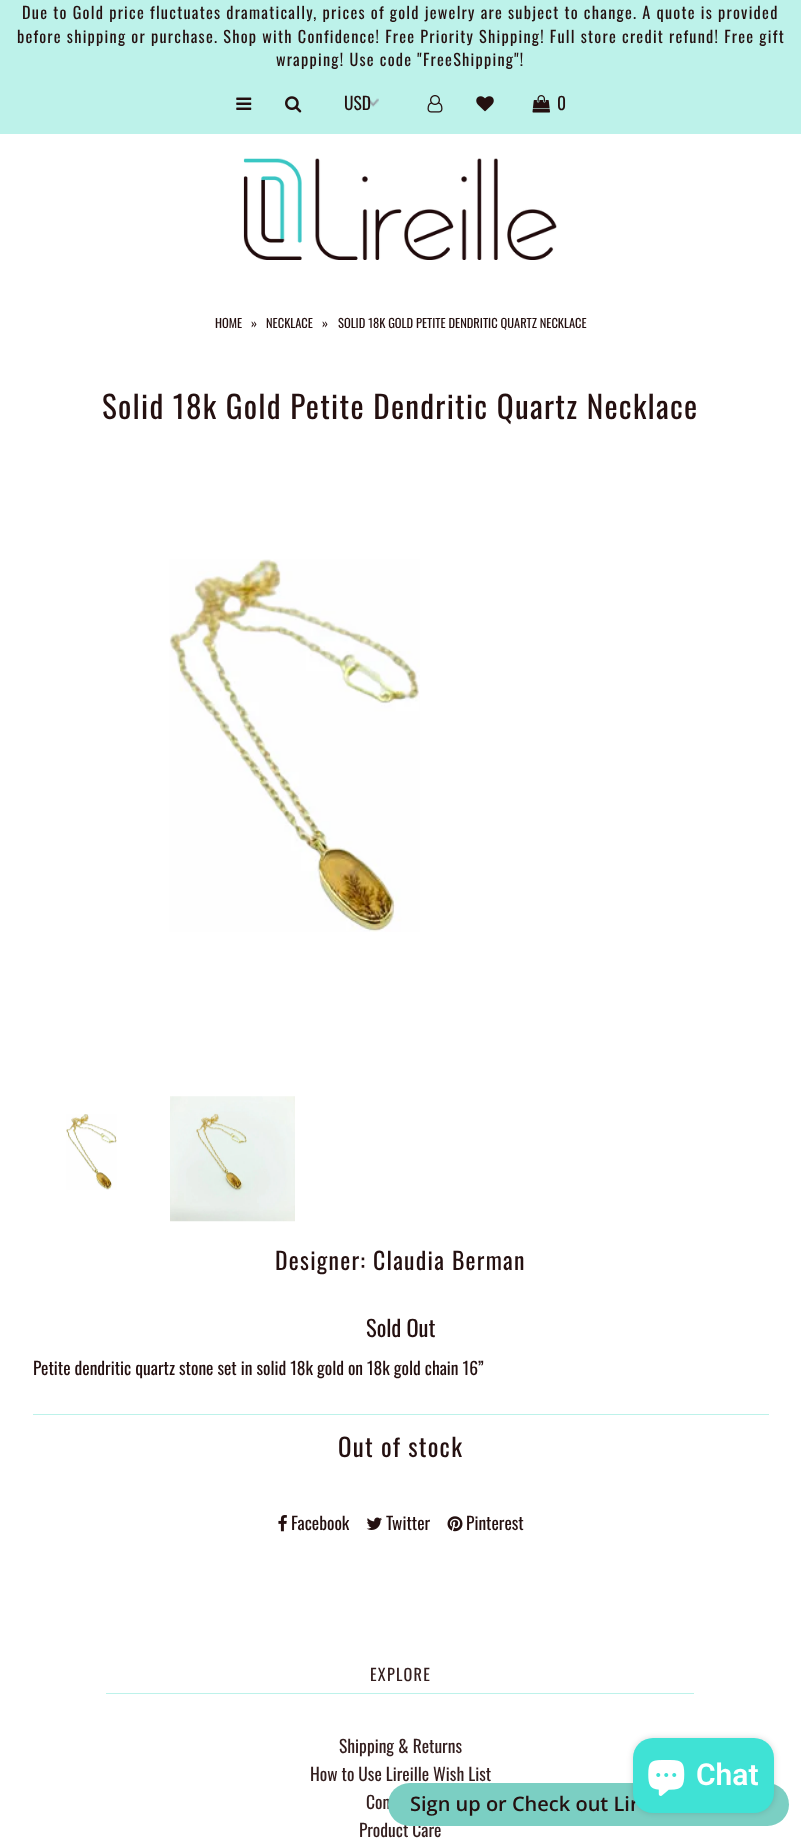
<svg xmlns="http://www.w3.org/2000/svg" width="801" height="1838">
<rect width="100%" height="100%" fill="#fff"/>
<rect width="801" height="134" fill="#bdf2ea"/>
<text x="22" y="19" style="font-family:Oswald;font-size:16.25px;letter-spacing:1.25px;fill:#241010">Due to Gold price fluctuates dramatically, prices of gold jewelry are subject to change. A quote is provided</text>
<text x="17" y="43" style="font-family:Oswald;font-size:16.25px;letter-spacing:1.25px;fill:#241010">before shipping or purchase. Shop with Confidence! Free Priority Shipping! Full store credit refund! Free gift</text>
<text x="276" y="66" style="font-family:Oswald;font-size:16.25px;letter-spacing:1.25px;fill:#241010">wrapping! Use code "FreeShipping"!</text>
<image x="236" y="97" width="16" height="13" href="media/1.png"/>
<image x="285" y="96" width="17" height="17" href="media/2.png"/>
<image x="367" y="98" width="12" height="9" href="media/3.png"/>
<text x="344" y="110" style="font-family:Oswald;font-size:17.5px;fill:#241010">USD</text>
<image x="427" y="95" width="16" height="18" href="media/4.png"/>
<image x="476" y="96" width="18" height="16" href="media/5.png"/>
<image x="532" y="95" width="18" height="18" href="media/6.png"/>
<text x="557" y="110" style="font-family:Oswald;font-size:17.5px;letter-spacing:1.25px;fill:#241010">0</text>
<image x="243" y="158" width="314" height="102" href="media/7.png"/>
<text x="215" y="328" style="font-family:Oswald;font-size:12.5px;fill:#241010">HOME</text>
<text x="251" y="328" style="font-family:Oswald;font-size:12.5px;fill:#241010">»</text>
<text x="266" y="328" style="font-family:Oswald;font-size:12.5px;fill:#241010">NECKLACE</text>
<text x="322" y="328" style="font-family:Oswald;font-size:12.5px;fill:#241010">»</text>
<text x="338" y="328" style="font-family:Oswald;font-size:12.5px;fill:#241010">SOLID 18K GOLD PETITE DENDRITIC QUARTZ NECKLACE</text>
<text x="102" y="419" style="font-family:Oswald;font-size:31.25px;letter-spacing:1.25px;fill:#241010">Solid 18k Gold Petite Dendritic Quartz Necklace</text>
<image x="169" y="559" width="251" height="373" href="media/8.png"/>
<image x="66" y="1114" width="51" height="76" href="media/9.png"/>
<image x="170" y="1096" width="125" height="126" href="media/10.png"/>
<text x="275" y="1270" style="font-family:Oswald;font-size:23.75px;letter-spacing:1.25px;fill:#241010">Designer: Claudia Berman</text>
<text x="366" y="1337" style="font-family:Oswald;font-size:22.5px;fill:#241010">Sold Out</text>
<text x="33" y="1375" style="font-family:Oswald;font-size:17.5px;fill:#241010">Petite dendritic quartz stone set in solid 18k gold on 18k gold chain 16”</text>
<rect x="33" y="1414" width="736" height="1" fill="#bdf2ea"/>
<text x="338" y="1457" style="font-family:Oswald;font-size:25px;letter-spacing:1.25px;fill:#241010">Out of stock</text>
<image x="278" y="1515" width="9" height="17" href="media/11.png"/>
<text x="291" y="1530" style="font-family:Oswald;font-size:17.5px;fill:#241010">Facebook</text>
<image x="366" y="1517" width="16" height="13" href="media/12.png"/>
<text x="386" y="1530" style="font-family:Oswald;font-size:17.5px;fill:#241010">Twitter</text>
<image x="447" y="1516" width="16" height="16" href="media/13.png"/>
<text x="466" y="1530" style="font-family:Oswald;font-size:17.5px;fill:#241010">Pinterest</text>
<rect x="106" y="1693" width="588" height="1" fill="#bdf2ea"/>
<text x="370" y="1681" style="font-family:Oswald;font-size:16.25px;letter-spacing:1.25px;fill:#331e1e">EXPLORE</text>
<text x="339" y="1753" style="font-family:Oswald;font-size:17.5px;fill:#331e1e">Shipping &amp; Returns</text>
<text x="310" y="1781" style="font-family:Oswald;font-size:17.5px;fill:#331e1e">How to Use Lireille Wish List</text>
<text x="366" y="1809" style="font-family:Oswald;font-size:17.5px;fill:#331e1e">Con</text>
<text x="359" y="1837" style="font-family:Oswald;font-size:17.5px;fill:#331e1e">Product Care</text>
<rect x="388" y="1783" width="401" height="43" rx="21.5" fill="#7bcfc3"/>
<rect x="633" y="1738" width="141" height="75" rx="20" fill="#00000026" filter="blur(3px)"/>
<text x="410" y="1811" style="font-family:Open Sans;font-size:20px;font-weight:600;fill:#241010">Sign up or Check out Lir</text>
<rect x="633" y="1738" width="141" height="75" rx="20" fill="#3fe2d5"/>
<image x="648" y="1760" width="37" height="36" href="media/14.png"/>
<text x="696" y="1785" style="font-family:Roboto;font-size:30px;font-weight:600;fill:#fff">Chat</text>
</svg>
